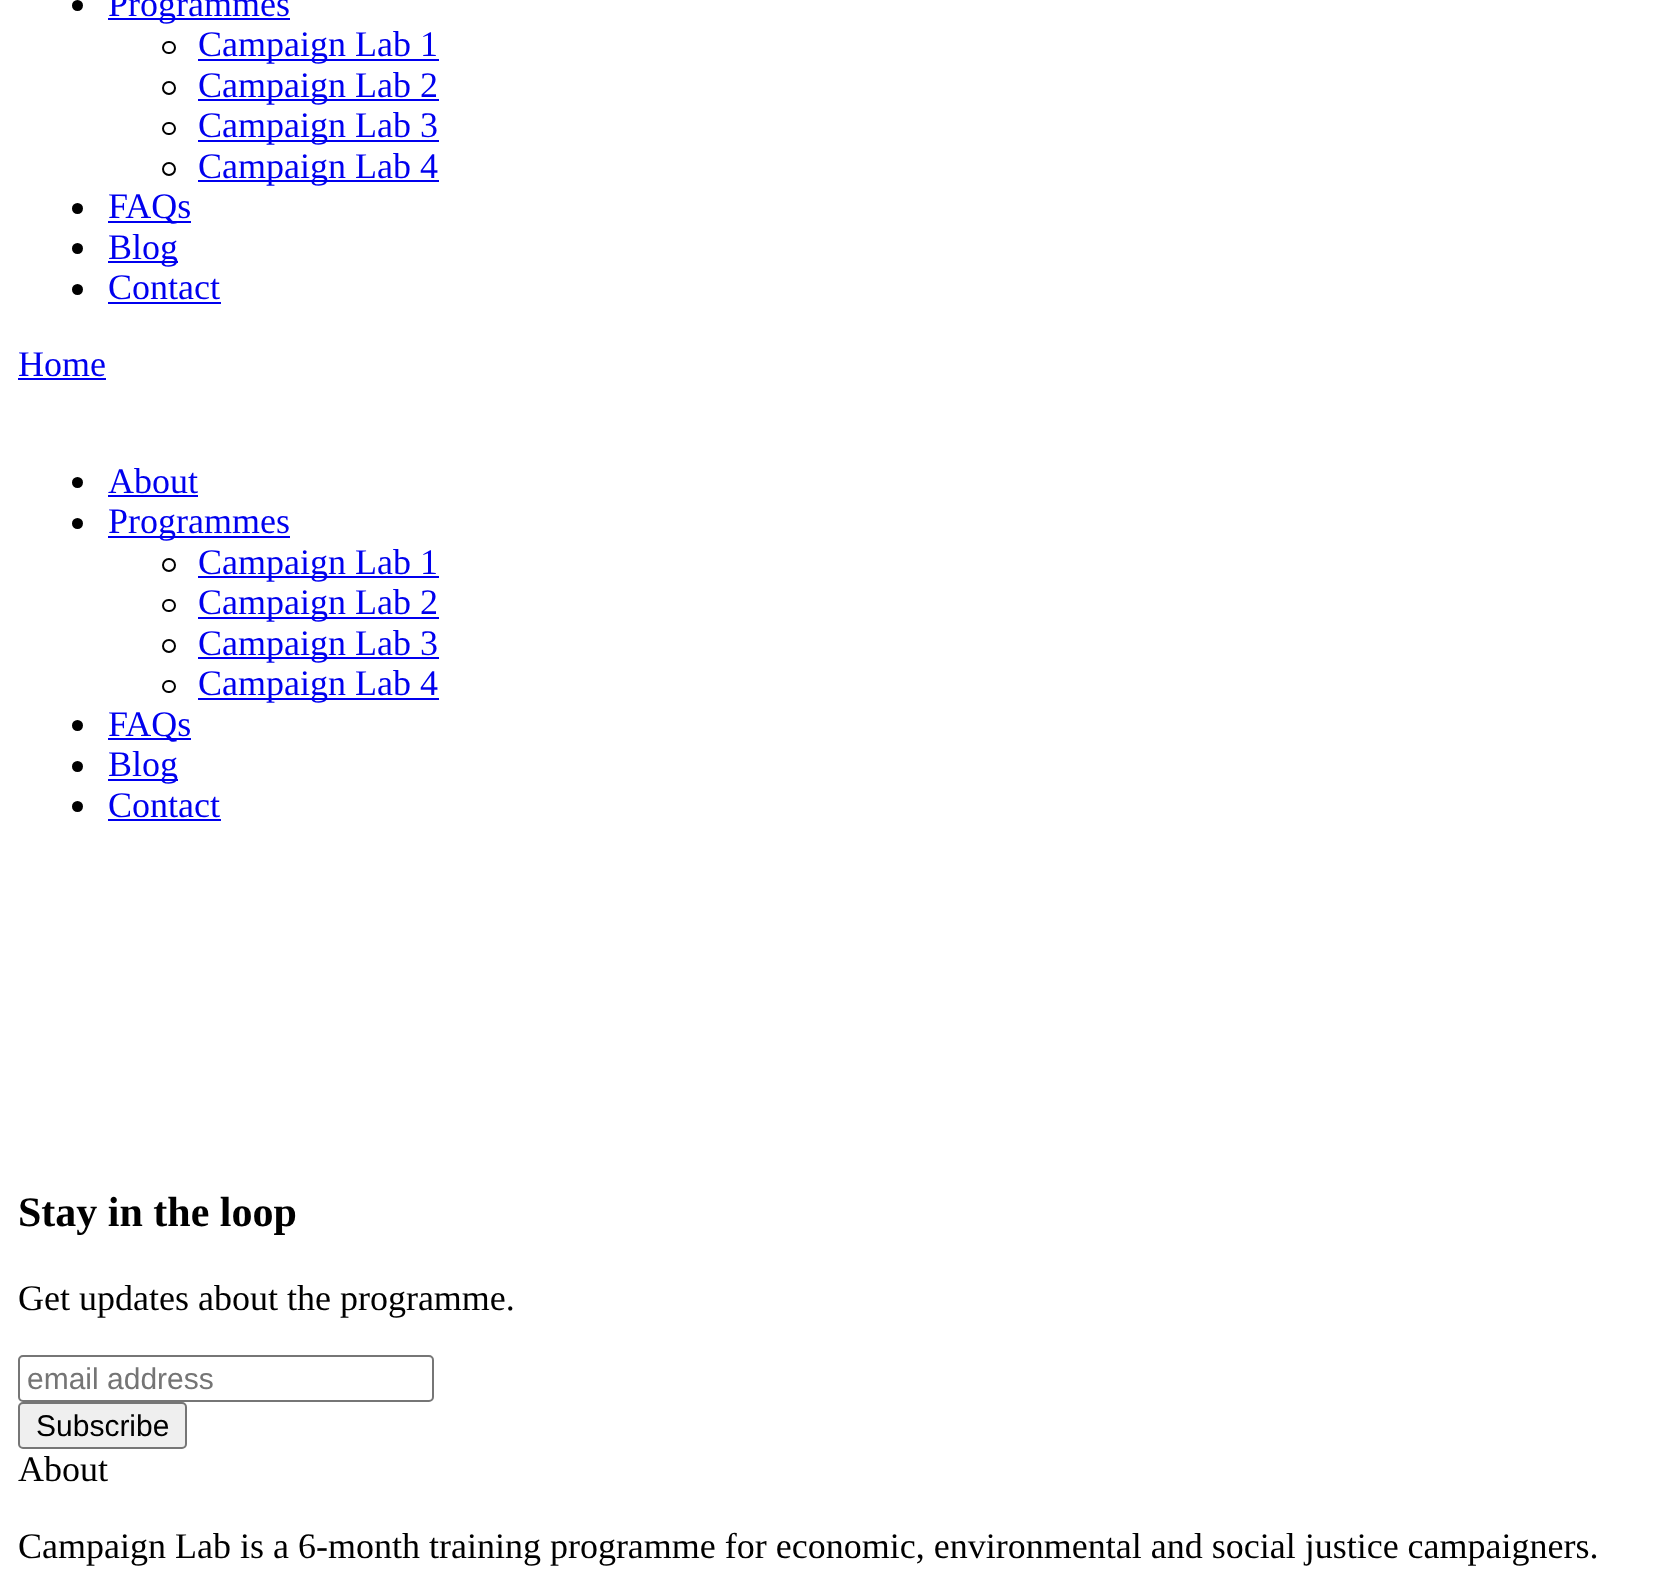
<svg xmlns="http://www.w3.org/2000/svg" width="1670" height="1573">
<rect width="100%" height="100%" fill="#fff"/>
<circle cx="77.5" cy="5.5" r="5.5" fill="#000"/>
<rect x="108" y="18" width="182" height="2" fill="#00e"/>
<text x="108" y="16" style="font-family:Liberation Serif;font-size:36px;fill:#00e">Programmes</text>
<rect x="163" y="42" width="12" height="11" rx="5.5" fill="none" stroke="#000" stroke-width="2"/>
<rect x="198" y="59" width="241" height="2" fill="#00e"/>
<text x="198" y="56" style="font-family:Liberation Serif;font-size:36px;fill:#00e">Campaign Lab 1</text>
<circle cx="169" cy="88" r="6" fill="none" stroke="#000" stroke-width="2"/>
<rect x="198" y="99" width="241" height="2" fill="#00e"/>
<text x="198" y="97" style="font-family:Liberation Serif;font-size:36px;fill:#00e">Campaign Lab 2</text>
<rect x="163" y="123" width="12" height="11" rx="5.5" fill="none" stroke="#000" stroke-width="2"/>
<rect x="198" y="140" width="241" height="2" fill="#00e"/>
<text x="198" y="137" style="font-family:Liberation Serif;font-size:36px;fill:#00e">Campaign Lab 3</text>
<circle cx="169" cy="169" r="6" fill="none" stroke="#000" stroke-width="2"/>
<rect x="198" y="180" width="241" height="2" fill="#00e"/>
<text x="198" y="178" style="font-family:Liberation Serif;font-size:36px;fill:#00e">Campaign Lab 4</text>
<circle cx="77.5" cy="208.5" r="5.5" fill="#000"/>
<rect x="108" y="221" width="83" height="2" fill="#00e"/>
<text x="108" y="218" style="font-family:Liberation Serif;font-size:36px;fill:#00e">FAQs</text>
<circle cx="77.5" cy="248.5" r="5.5" fill="#000"/>
<rect x="108" y="261" width="70" height="2" fill="#00e"/>
<text x="108" y="259" style="font-family:Liberation Serif;font-size:36px;fill:#00e">Blog</text>
<circle cx="77.5" cy="289.5" r="5.5" fill="#000"/>
<text x="108" y="299" style="font-family:Liberation Serif;font-size:36px;fill:#00e">Contact</text>
<rect x="108" y="302" width="113" height="2" fill="#00e"/>
<text x="18" y="376" style="font-family:Liberation Serif;font-size:36px;fill:#00e">Home</text>
<rect x="18" y="378" width="88" height="2" fill="#00e"/>
<circle cx="77.5" cy="482.5" r="5.5" fill="#000"/>
<text x="108" y="493" style="font-family:Liberation Serif;font-size:36px;fill:#00e">About</text>
<rect x="108" y="495" width="90" height="2" fill="#00e"/>
<circle cx="77.5" cy="523.5" r="5.5" fill="#000"/>
<rect x="108" y="536" width="182" height="2" fill="#00e"/>
<text x="108" y="533" style="font-family:Liberation Serif;font-size:36px;fill:#00e">Programmes</text>
<circle cx="169" cy="565" r="6" fill="none" stroke="#000" stroke-width="2"/>
<rect x="198" y="576" width="241" height="2" fill="#00e"/>
<text x="198" y="574" style="font-family:Liberation Serif;font-size:36px;fill:#00e">Campaign Lab 1</text>
<rect x="163" y="600" width="12" height="11" rx="5.5" fill="none" stroke="#000" stroke-width="2"/>
<rect x="198" y="617" width="241" height="2" fill="#00e"/>
<text x="198" y="614" style="font-family:Liberation Serif;font-size:36px;fill:#00e">Campaign Lab 2</text>
<circle cx="169" cy="646" r="6" fill="none" stroke="#000" stroke-width="2"/>
<rect x="198" y="657" width="241" height="2" fill="#00e"/>
<text x="198" y="655" style="font-family:Liberation Serif;font-size:36px;fill:#00e">Campaign Lab 3</text>
<rect x="163" y="681" width="12" height="11" rx="5.5" fill="none" stroke="#000" stroke-width="2"/>
<rect x="198" y="698" width="241" height="2" fill="#00e"/>
<text x="198" y="695" style="font-family:Liberation Serif;font-size:36px;fill:#00e">Campaign Lab 4</text>
<circle cx="77.5" cy="725.5" r="5.5" fill="#000"/>
<rect x="108" y="738" width="83" height="2" fill="#00e"/>
<text x="108" y="736" style="font-family:Liberation Serif;font-size:36px;fill:#00e">FAQs</text>
<circle cx="77.5" cy="766.5" r="5.5" fill="#000"/>
<rect x="108" y="779" width="70" height="2" fill="#00e"/>
<text x="108" y="776" style="font-family:Liberation Serif;font-size:36px;fill:#00e">Blog</text>
<circle cx="77.5" cy="806.5" r="5.5" fill="#000"/>
<text x="108" y="817" style="font-family:Liberation Serif;font-size:36px;fill:#00e">Contact</text>
<rect x="108" y="819" width="113" height="2" fill="#00e"/>
<text x="18" y="1226" style="font-family:Liberation Serif;font-size:42px;font-weight:bold;fill:#000">Stay in the loop</text>
<text x="18" y="1310" style="font-family:Liberation Serif;font-size:36px;fill:#000">Get updates about the programme.</text>
<rect x="19" y="1356" width="414" height="45" rx="4" fill="none" stroke="#767676" stroke-width="2"/>
<text x="27" y="1389" style="font-family:Liberation Sans;font-size:30px;fill:#757575">email address</text>
<rect x="19" y="1403" width="167" height="45" rx="4" fill="#efefef" stroke="#767676" stroke-width="2"/>
<text x="36" y="1436" style="font-family:Liberation Sans;font-size:30px;fill:#000">Subscribe</text>
<text x="18" y="1481" style="font-family:Liberation Serif;font-size:36px;fill:#000">About</text>
<text x="18" y="1558" style="font-family:Liberation Serif;font-size:36px;fill:#000">Campaign Lab is a 6-month training programme for economic, environmental and social justice campaigners.</text>
</svg>
